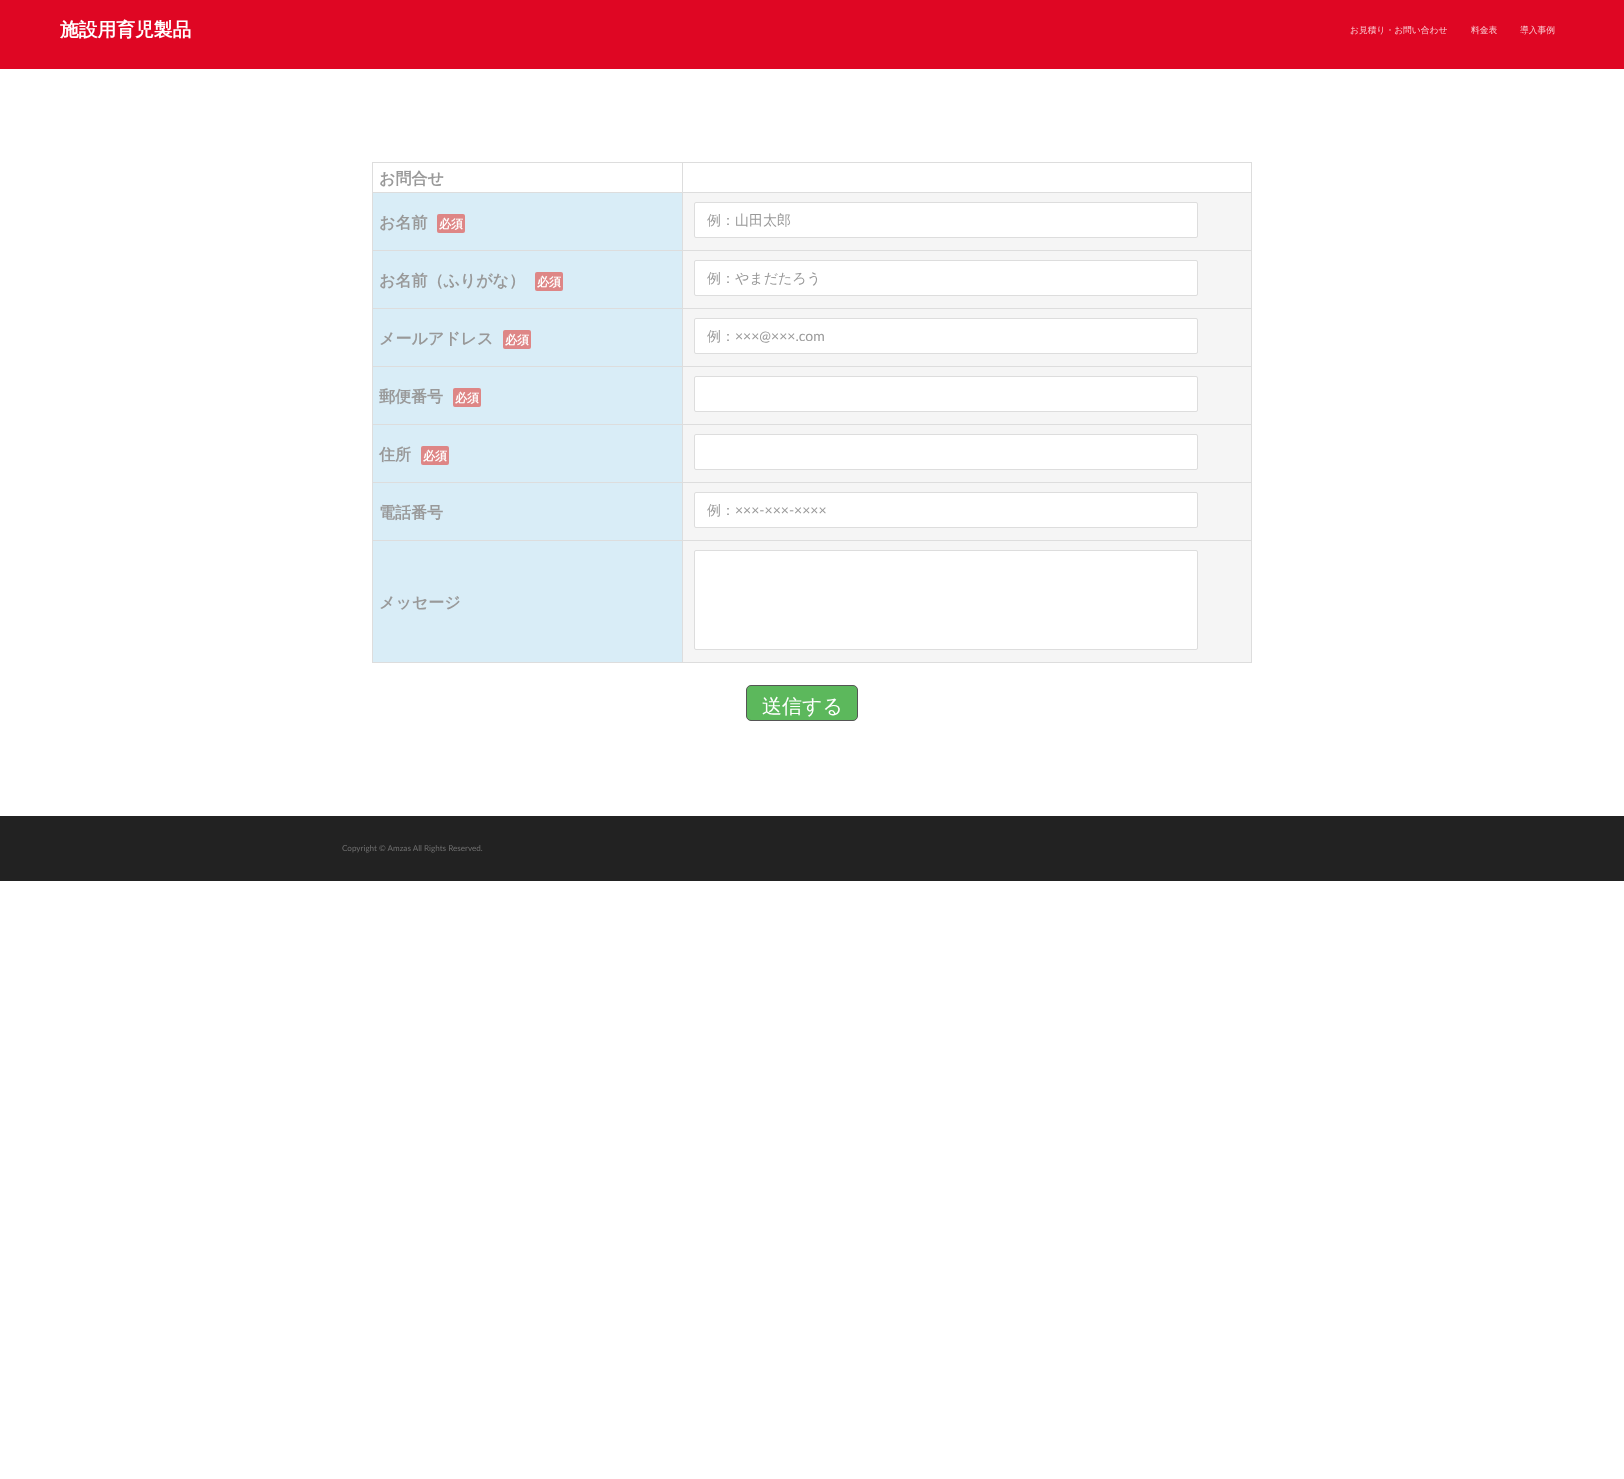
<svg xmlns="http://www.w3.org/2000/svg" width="1624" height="1479">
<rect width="100%" height="100%" fill="#fff"/>
<rect width="1624" height="69" fill="#df0623"/>
<text x="60" y="36" style="font-family:WenQuanYi Zen Hei;font-size:18.75px;font-weight:bold;fill:#fff">施設用育児製品</text>
<text x="1350" y="33" style="font-family:WenQuanYi Zen Hei;font-size:8.75px;font-weight:500;fill:#f9cdd3">お見積り・お問い合わせ</text>
<text x="1471" y="33" style="font-family:WenQuanYi Zen Hei;font-size:8.75px;font-weight:500;fill:#f9cdd3">料金表</text>
<text x="1520" y="33" style="font-family:WenQuanYi Zen Hei;font-size:8.75px;font-weight:500;fill:#f9cdd3">導入事例</text>
<rect x="372" y="162" width="880" height="1" fill="#ddd"/>
<rect x="1251" y="162" width="1" height="501" fill="#ddd"/>
<rect x="372" y="662" width="880" height="1" fill="#ddd"/>
<rect x="372" y="162" width="1" height="501" fill="#ddd"/>
<rect x="682" y="192" width="569" height="1" fill="#ddd"/>
<rect x="682" y="250" width="569" height="1" fill="#ddd"/>
<rect x="682" y="308" width="569" height="1" fill="#ddd"/>
<rect x="682" y="366" width="569" height="1" fill="#ddd"/>
<rect x="682" y="424" width="569" height="1" fill="#ddd"/>
<rect x="682" y="482" width="569" height="1" fill="#ddd"/>
<rect x="682" y="540" width="569" height="1" fill="#ddd"/>
<rect x="682" y="540" width="1" height="122" fill="#ddd"/>
<rect x="373" y="540" width="310" height="1" fill="#ddd"/>
<rect x="682" y="482" width="1" height="59" fill="#ddd"/>
<rect x="373" y="482" width="310" height="1" fill="#ddd"/>
<rect x="682" y="424" width="1" height="59" fill="#ddd"/>
<rect x="373" y="424" width="310" height="1" fill="#ddd"/>
<rect x="682" y="366" width="1" height="59" fill="#ddd"/>
<rect x="373" y="366" width="310" height="1" fill="#ddd"/>
<rect x="682" y="308" width="1" height="59" fill="#ddd"/>
<rect x="373" y="308" width="310" height="1" fill="#ddd"/>
<rect x="682" y="250" width="1" height="59" fill="#ddd"/>
<rect x="373" y="250" width="310" height="1" fill="#ddd"/>
<rect x="682" y="192" width="1" height="59" fill="#ddd"/>
<rect x="373" y="192" width="310" height="1" fill="#ddd"/>
<rect x="682" y="163" width="1" height="30" fill="#ddd"/>
<text x="379" y="184" style="font-family:WenQuanYi Zen Hei;font-size:16px;font-weight:bold;fill:#999">お問合せ</text>
<rect x="373" y="193" width="309" height="57" fill="#d9edf7"/>
<text x="379" y="228" style="font-family:WenQuanYi Zen Hei;font-size:16px;font-weight:bold;fill:#999">お名前</text>
<rect x="437" y="214" width="28" height="19" rx="2" fill="#de8686"/>
<text x="439" y="228" style="font-family:WenQuanYi Zen Hei;font-size:12px;font-weight:bold;fill:#fff">必須</text>
<rect x="683" y="193" width="568" height="57" fill="#f5f5f5"/>
<rect x="694.5" y="202.5" width="503" height="35" rx="1.5" fill="#fff" stroke="#ddd"/>
<text x="707" y="225" style="font-family:WenQuanYi Zen Hei;font-size:14px;font-weight:500;fill:#999">例：山田太郎</text>
<rect x="373" y="251" width="309" height="57" fill="#d9edf7"/>
<text x="379" y="286" style="font-family:WenQuanYi Zen Hei;font-size:16px;font-weight:bold;fill:#999">お名前（ふりがな）</text>
<rect x="535" y="272" width="28" height="19" rx="2" fill="#de8686"/>
<text x="537" y="286" style="font-family:WenQuanYi Zen Hei;font-size:12px;font-weight:bold;fill:#fff">必須</text>
<rect x="683" y="251" width="568" height="57" fill="#f5f5f5"/>
<rect x="694.5" y="260.5" width="503" height="35" rx="1.5" fill="#fff" stroke="#ddd"/>
<text x="707" y="283" style="font-family:WenQuanYi Zen Hei;font-size:14px;font-weight:500;fill:#999">例：やまだたろう</text>
<rect x="373" y="309" width="309" height="57" fill="#d9edf7"/>
<text x="379" y="344" style="font-family:WenQuanYi Zen Hei;font-size:16px;font-weight:bold;fill:#999">メールアドレス</text>
<rect x="503" y="330" width="28" height="19" rx="2" fill="#de8686"/>
<text x="505" y="344" style="font-family:WenQuanYi Zen Hei;font-size:12px;font-weight:bold;fill:#fff">必須</text>
<rect x="683" y="309" width="568" height="57" fill="#f5f5f5"/>
<rect x="694.5" y="318.5" width="503" height="35" rx="1.5" fill="#fff" stroke="#ddd"/>
<text x="707" y="341" style="font-family:WenQuanYi Zen Hei;font-size:14px;font-weight:500;fill:#999">例：</text>
<text x="735" y="341" style="font-family:Lato;font-size:14px;fill:#999">×××@×××.com</text>
<rect x="373" y="367" width="309" height="57" fill="#d9edf7"/>
<text x="379" y="402" style="font-family:WenQuanYi Zen Hei;font-size:16px;font-weight:bold;fill:#999">郵便番号</text>
<rect x="453" y="388" width="28" height="19" rx="2" fill="#de8686"/>
<text x="455" y="402" style="font-family:WenQuanYi Zen Hei;font-size:12px;font-weight:bold;fill:#fff">必須</text>
<rect x="683" y="367" width="568" height="57" fill="#f5f5f5"/>
<rect x="694.5" y="376.5" width="503" height="35" rx="1.5" fill="#fff" stroke="#ddd"/>
<rect x="373" y="425" width="309" height="57" fill="#d9edf7"/>
<text x="379" y="460" style="font-family:WenQuanYi Zen Hei;font-size:16px;font-weight:bold;fill:#999">住所</text>
<rect x="421" y="446" width="28" height="19" rx="2" fill="#de8686"/>
<text x="423" y="460" style="font-family:WenQuanYi Zen Hei;font-size:12px;font-weight:bold;fill:#fff">必須</text>
<rect x="683" y="425" width="568" height="57" fill="#f5f5f5"/>
<rect x="694.5" y="434.5" width="503" height="35" rx="1.5" fill="#fff" stroke="#ddd"/>
<rect x="373" y="483" width="309" height="57" fill="#d9edf7"/>
<text x="379" y="518" style="font-family:WenQuanYi Zen Hei;font-size:16px;font-weight:bold;fill:#999">電話番号</text>
<rect x="683" y="483" width="568" height="57" fill="#f5f5f5"/>
<rect x="694.5" y="492.5" width="503" height="35" rx="1.5" fill="#fff" stroke="#ddd"/>
<text x="707" y="515" style="font-family:WenQuanYi Zen Hei;font-size:14px;font-weight:500;fill:#999">例：</text>
<text x="735" y="515" style="font-family:Lato;font-size:14px;fill:#999">×××-×××-××××</text>
<rect x="373" y="541" width="309" height="121" fill="#d9edf7"/>
<text x="379" y="608" style="font-family:WenQuanYi Zen Hei;font-size:16px;font-weight:bold;fill:#999">メッセージ</text>
<rect x="683" y="541" width="568" height="121" fill="#f5f5f5"/>
<rect x="694.5" y="550.5" width="503" height="99" rx="1.5" fill="#fff" stroke="#ddd"/>
<rect x="746.5" y="685.5" width="111" height="35" rx="4.5" fill="#5cb85c" stroke="#555"/>
<text x="762" y="713" style="font-family:WenQuanYi Zen Hei;font-size:20px;font-weight:500;fill:#fff">送信する</text>
<rect y="816" width="1624" height="65" fill="#222"/>
<text x="342" y="851" style="font-family:Lato;font-size:8.1px;fill:#6f6f6f">Copyright © Amzas All Rights Reserved.</text>
</svg>
